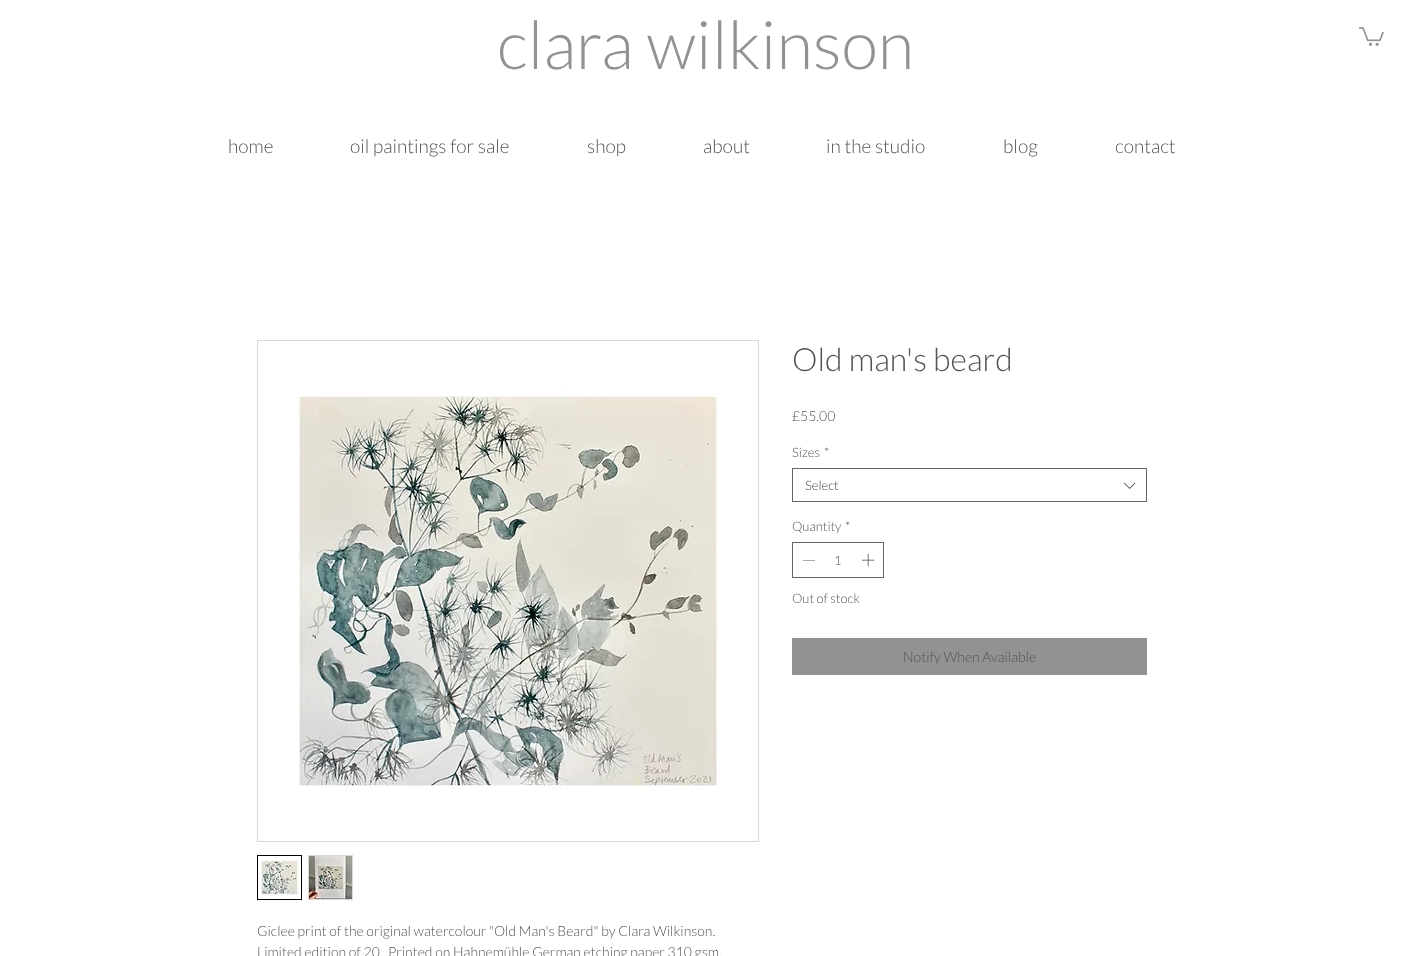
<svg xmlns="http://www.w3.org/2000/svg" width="1404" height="956">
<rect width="100%" height="100%" fill="#fff"/>
<text x="497" y="69" style="font-family:Lato;font-size:67px;font-weight:300;fill:#929292">clara wilkinson</text>
<image x="1359" y="27" width="25" height="19" href="media/1.png"/>
<text x="228" y="153" style="font-family:Lato;font-size:19px;font-weight:300;fill:#545454">home</text>
<text x="350" y="153" style="font-family:Lato;font-size:19px;font-weight:300;fill:#545454">oil paintings for sale</text>
<text x="587" y="153" style="font-family:Lato;font-size:19px;font-weight:300;fill:#545454">shop</text>
<text x="703" y="153" style="font-family:Lato;font-size:19px;font-weight:300;fill:#545454">about</text>
<text x="826" y="153" style="font-family:Lato;font-size:19px;font-weight:300;fill:#545454">in the studio</text>
<text x="1003" y="153" style="font-family:Lato;font-size:19px;font-weight:300;fill:#545454">blog</text>
<text x="1115" y="153" style="font-family:Lato;font-size:19px;font-weight:300;fill:#545454">contact</text>
<text x="792" y="371" style="font-family:Lato;font-size:32px;font-weight:300;fill:#545454">Old man's beard</text>
<text x="792" y="421" style="font-family:Lato;font-size:14px;font-weight:300;fill:#545454">£55.00</text>
<text x="792" y="457" style="font-family:Lato;font-size:13px;font-weight:300;fill:#545454">Sizes</text>
<text x="824" y="457" style="font-family:Lato;font-size:13px;font-weight:300;fill:#545454">*</text>
<rect x="792.5" y="468.5" width="354" height="33" fill="none" stroke="#666"/>
<text x="805" y="490" style="font-family:Lato;font-size:13px;font-weight:300;fill:#444">Select</text>
<image x="1124" y="482" width="12" height="7" href="media/2.png"/>
<text x="792" y="531" style="font-family:Lato;font-size:13px;font-weight:300;fill:#545454">Quantity</text>
<text x="845" y="531" style="font-family:Lato;font-size:13px;font-weight:300;fill:#545454">*</text>
<rect x="792.5" y="542.5" width="91" height="35" fill="none" stroke="#666"/>
<path d="M815 560v.5h-12v-.5z" fill="#545454" fill-rule="evenodd"/>
<text x="834" y="565" style="font-family:Lato;font-size:13px;font-weight:300;fill:#545454">1</text>
<image x="862" y="554" width="13" height="13" href="media/3.png"/>
<text x="792" y="603" style="font-family:Lato;font-size:13px;font-weight:300;fill:#545454">Out of stock</text>
<rect x="792" y="638" width="355" height="37" fill="#929292"/>
<text x="903" y="662" style="font-family:Lato;font-size:14px;font-weight:300;fill:#545454">Notify When Available</text>
<rect x="257.5" y="340.5" width="501" height="501" fill="none" stroke="#d9d9d9"/>
<image x="298" y="393" width="420" height="396" href="media/4.png"/>
<rect x="257.5" y="855.5" width="44" height="44" fill="none" stroke="#000"/>
<image x="258" y="856" width="43" height="43" href="media/5.png"/>
<rect x="308" y="855" width="45" height="45" fill="#d9d9d9"/>
<image x="309" y="856" width="43" height="43" href="media/6.png"/>
<text x="257" y="936" style="font-family:Lato;font-size:14px;font-weight:300;fill:#545454">Giclee print of the original watercolour "Old Man's Beard" by Clara Wilkinson.</text>
<text x="257" y="957" style="font-family:Lato;font-size:14px;font-weight:300;fill:#545454" xml:space="preserve">Limited edition of 20.  Printed on Hahnemühle German etching paper 310 gsm.</text>
</svg>
